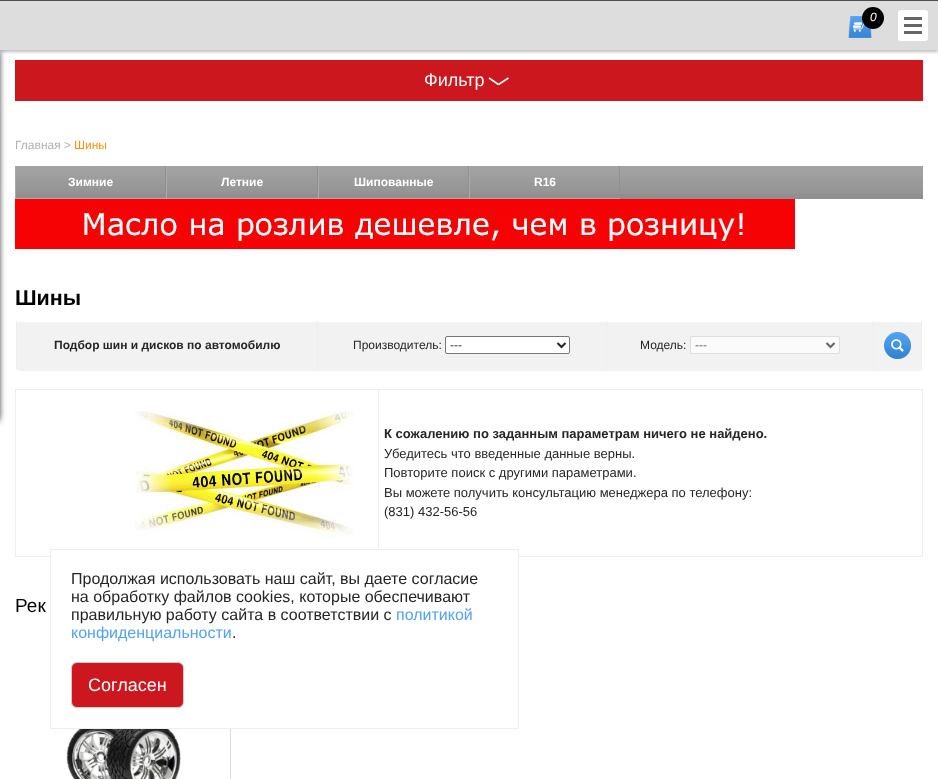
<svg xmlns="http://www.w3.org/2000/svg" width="938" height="779">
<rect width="100%" height="100%" fill="#fff"/>
<rect y="2" width="938" height="50" fill="#00000040" filter="blur(1.5px)"/>
<rect x="-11" y="51" width="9" height="369" fill="#000000b3" filter="blur(3.5px)"/>
<rect x="-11" y="51" width="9" height="369" fill="#000000b3" filter="blur(3.5px)"/>
<rect y="1" width="938" height="49" fill="#ddd"/>
<rect width="938" height="1" fill="#4d4d4d"/>
<rect x="898" y="10" width="30" height="31" rx="3" fill="#fff"/>
<rect x="904" y="17" width="18" height="3" fill="#666"/>
<rect x="904" y="24" width="18" height="3" fill="#666"/>
<rect x="904" y="31" width="18" height="3" fill="#666"/>
<image x="848" y="11" width="24" height="27" href="media/1.png"/>
<circle cx="873" cy="18" r="11" fill="#000"/>
<text x="870" y="21" style="font-family:Liberation Sans;font-size:12px;font-style:italic;fill:#fff">0</text>
<rect x="15" y="60" width="908" height="41" fill="#cd171e"/>
<text x="424" y="86" style="font-family:Liberation Sans;font-size:18px;fill:#fff">Фильтр</text>
<path d="M489 78l9.5 6.5m0 0l10-6.5" fill="none" stroke="#fff" stroke-width="1.6"/>
<text x="15" y="149" style="font-family:Liberation Sans;font-size:12px;fill:#b1b1ae">Главная &gt;</text>
<text x="74" y="149" style="font-family:Liberation Sans;font-size:12px;fill:#ff9000">Шины</text>
<rect x="16" y="194" width="907" height="5" fill="#8f8f8f"/>
<image x="16" y="166" width="907" height="28" href="media/2.png"/>
<rect x="165" y="166" width="1" height="33" fill="#909090"/>
<rect x="15" y="198" width="151" height="1" fill="#acaca2"/>
<rect x="15" y="166" width="1" height="33" fill="#acaca2"/>
<text x="68" y="186" style="font-family:Liberation Sans;font-size:12px;font-weight:bold;fill:#fff">Зимние</text>
<rect x="317" y="166" width="1" height="33" fill="#909090"/>
<rect x="166" y="198" width="152" height="1" fill="#acaca2"/>
<rect x="166" y="166" width="1" height="33" fill="#acaca2"/>
<text x="221" y="186" style="font-family:Liberation Sans;font-size:12px;font-weight:bold;fill:#fff">Летние</text>
<rect x="468" y="166" width="1" height="33" fill="#909090"/>
<rect x="318" y="198" width="151" height="1" fill="#acaca2"/>
<rect x="318" y="166" width="1" height="33" fill="#acaca2"/>
<text x="354" y="186" style="font-family:Liberation Sans;font-size:12px;font-weight:bold;fill:#fff">Шипованные</text>
<rect x="619" y="166" width="1" height="33" fill="#909090"/>
<rect x="469" y="198" width="151" height="1" fill="#acaca2"/>
<rect x="469" y="166" width="1" height="33" fill="#acaca2"/>
<text x="534" y="186" style="font-family:Liberation Sans;font-size:12px;font-weight:bold;fill:#fff">R16</text>
<image x="15" y="199" width="780" height="50" href="media/3.png"/>
<text x="15" y="305" style="font-family:Liberation Sans;font-size:21.5px;font-weight:bold;fill:#000">Шины</text>
<rect x="15" y="322" width="908" height="49" rx="4" fill="#0000000d" filter="blur(0.5px)"/>
<rect x="15" y="321" width="908" height="49" rx="4" fill="#fff"/>
<rect x="16" y="323" width="906" height="47" rx="4" fill="#0000000d" filter="blur(0.5px)"/>
<rect x="16" y="322" width="906" height="47" rx="4" fill="#f2f2f2"/>
<rect x="16" y="321" width="1" height="48" fill="#eee"/>
<text x="54" y="349" style="font-family:Liberation Sans;font-size:12px;font-weight:bold;fill:#252525">Подбор шин и дисков по автомобилю</text>
<rect x="317" y="321" width="1" height="48" fill="#eee"/>
<text x="353" y="349" style="font-family:Liberation Sans;font-size:12px;fill:#252525">Производитель:</text>
<rect x="445.5" y="336.5" width="124" height="17" rx="1.5" fill="#fff" stroke="#767676"/>
<path d="M557.5 343l4 4l4-4" fill="none" stroke="#252525" stroke-width="2"/>
<text x="450" y="349" style="font-family:Liberation Sans;font-size:12px;fill:#252525">---</text>
<rect x="606" y="321" width="1" height="48" fill="#eee"/>
<text x="640" y="349" style="font-family:Liberation Sans;font-size:12px;fill:#252525">Модель:</text>
<rect x="690.5" y="336.5" width="149" height="17" rx="1.5" fill="#fbfbfb" stroke="#dedede"/>
<path d="M826.5 343l4 4l4-4" fill="none" stroke="#636363" stroke-width="2"/>
<text x="695" y="349" style="font-family:Liberation Sans;font-size:12px;fill:#636363">---</text>
<rect x="921" y="321" width="1" height="48" fill="#eee"/>
<rect x="873" y="321" width="1" height="48" fill="#eee"/>
<image x="884" y="332" width="27" height="27" href="media/4.png"/>
<rect x="15" y="389" width="908" height="1" fill="#eee"/>
<rect x="922" y="389" width="1" height="168" fill="#eee"/>
<rect x="15" y="556" width="908" height="1" fill="#eee"/>
<rect x="15" y="389" width="1" height="168" fill="#eee"/>
<image x="135" y="411" width="219" height="127" href="media/5.png"/>
<rect x="378" y="389" width="1" height="168" fill="#eee"/>
<text x="384" y="438" style="font-family:Liberation Sans;font-size:13px;font-weight:bold;fill:#252525">К сожалению по заданным параметрам ничего не найдено.</text>
<text x="384" y="458" style="font-family:Liberation Sans;font-size:13px;fill:#252525">Убедитесь что введенные данные верны.</text>
<text x="384" y="477" style="font-family:Liberation Sans;font-size:13px;fill:#252525">Повторите поиск с другими параметрами.</text>
<text x="384" y="497" style="font-family:Liberation Sans;font-size:13px;fill:#252525">Вы можете получить консультацию менеджера по телефону:</text>
<text x="384" y="516" style="font-family:Liberation Sans;font-size:13px;fill:#252525">(831) 432-56-56</text>
<text x="15" y="612" style="font-family:Liberation Sans;font-size:19px;fill:#000">Рек</text>
<image x="229" y="729" width="2" height="50" href="media/6.png"/>
<image x="66" y="729" width="115" height="50" href="media/7.png"/>
<rect x="51" y="550" width="467" height="7" fill="#fff"/>
<rect x="50.5" y="549.5" width="468" height="179" fill="none" stroke="#eee"/>
<text x="71" y="584" style="font-family:Liberation Sans;font-size:16px;fill:#252525">Продолжая использовать наш сайт, вы даете согласие</text>
<text x="71" y="602" style="font-family:Liberation Sans;font-size:16px;fill:#252525">на обработку файлов cookies, которые обеспечивают</text>
<text x="71" y="620" style="font-family:Liberation Sans;font-size:16px;fill:#252525">правильную работу сайта в соответствии с</text>
<text x="396" y="620" style="font-family:Liberation Sans;font-size:16px;fill:#52a2f2">политикой</text>
<text x="71" y="638" style="font-family:Liberation Sans;font-size:16px;fill:#52a2f2">конфиденциальности</text>
<text x="232" y="638" style="font-family:Liberation Sans;font-size:16px;fill:#252525">.</text>
<rect x="71.5" y="662.5" width="112" height="45" rx="5.5" fill="#cd171e" stroke="#ccc"/>
<text x="88" y="691" style="font-family:Liberation Sans;font-size:18px;fill:#fff">Согласен</text>
</svg>
